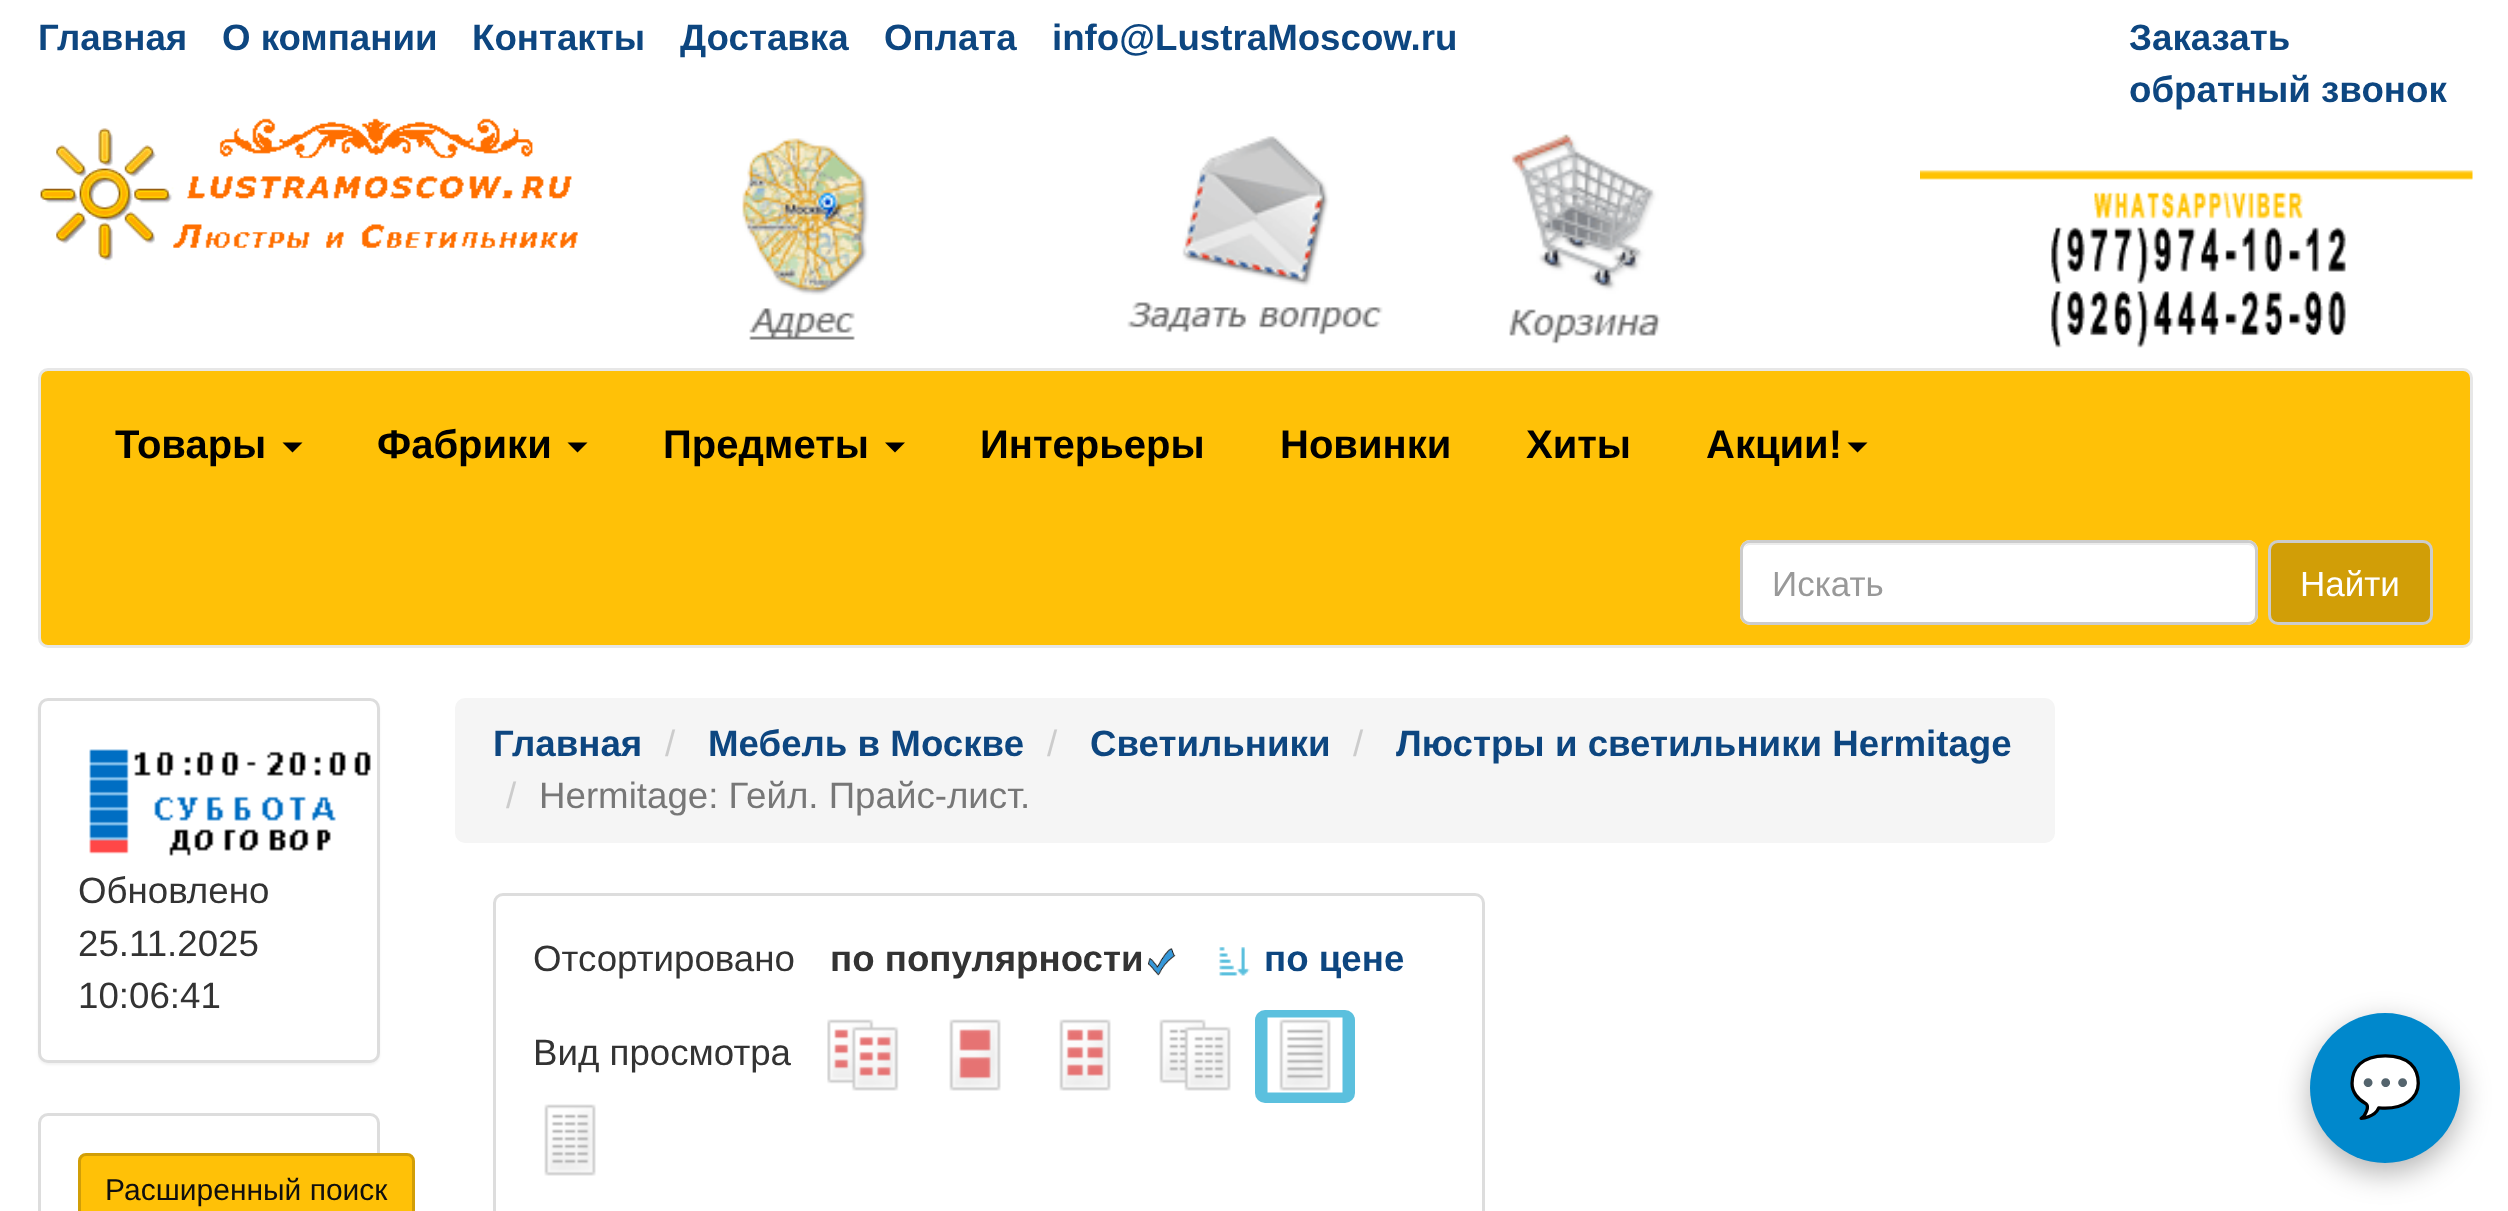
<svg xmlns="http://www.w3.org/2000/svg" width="2508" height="1211">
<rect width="100%" height="100%" fill="#fff"/>
<text x="38" y="50" style="font-family:Liberation Sans;font-size:36.7px;font-weight:bold;fill:#0d4680">Главная</text>
<text x="222" y="50" style="font-family:Liberation Sans;font-size:36.7px;font-weight:bold;fill:#0d4680">О компании</text>
<text x="472" y="50" style="font-family:Liberation Sans;font-size:36.7px;font-weight:bold;fill:#0d4680">Контакты</text>
<text x="680" y="50" style="font-family:Liberation Sans;font-size:36.7px;font-weight:bold;fill:#0d4680">Доставка</text>
<text x="884" y="50" style="font-family:Liberation Sans;font-size:36.7px;font-weight:bold;fill:#0d4680">Оплата</text>
<text x="1052" y="50" style="font-family:Liberation Sans;font-size:36.7px;font-weight:bold;fill:#0d4680">info@LustraMoscow.ru</text>
<text x="2129" y="50" style="font-family:Liberation Sans;font-size:36.7px;font-weight:bold;fill:#0d4680">Заказать</text>
<text x="2129" y="102" style="font-family:Liberation Sans;font-size:36.7px;font-weight:bold;fill:#0d4680">обратный звонок</text>
<image x="40" y="118" width="538" height="147" href="media/1.png"/>
<image x="742" y="138" width="127" height="202" href="media/2.png"/>
<image x="1127" y="136" width="256" height="199" href="media/3.png"/>
<image x="1509" y="134" width="152" height="210" href="media/4.png"/>
<image x="1920" y="170" width="553" height="178" href="media/5.png"/>
<rect x="39.5" y="369.5" width="2432" height="277" rx="8.5" fill="#ffc107" stroke="#e7e7e7" stroke-width="3"/>
<text x="115" y="458" style="font-family:Liberation Sans;font-size:40px;font-weight:bold;fill:#000">Товары</text>
<path d="M282.5 442.5h20l-10 10z" fill="#000"/>
<text x="377" y="458" style="font-family:Liberation Sans;font-size:40px;font-weight:bold;fill:#000">Фабрики</text>
<path d="M567.5 442.5h20l-10 10z" fill="#000"/>
<text x="663" y="458" style="font-family:Liberation Sans;font-size:40px;font-weight:bold;fill:#000">Предметы</text>
<path d="M885 442.5h20l-10 10z" fill="#000"/>
<text x="980" y="458" style="font-family:Liberation Sans;font-size:40px;font-weight:bold;fill:#000">Интерьеры</text>
<text x="1280" y="458" style="font-family:Liberation Sans;font-size:40px;font-weight:bold;fill:#000">Новинки</text>
<text x="1526" y="458" style="font-family:Liberation Sans;font-size:40px;font-weight:bold;fill:#000">Хиты</text>
<text x="1706" y="458" style="font-family:Liberation Sans;font-size:40px;font-weight:bold;fill:#000">Акции!</text>
<path d="M1847.5 442.5h20l-10 10z" fill="#000"/>
<rect x="1740" y="540" width="518" height="85" rx="10" fill="#fff"/>
<path d="M1750 545h498c4 0 7 3 7 7v-1c0-4-4-8-8-8h-496c-3 0-6 2-7 5c1-2 4-3 6-3z" fill="#ececec"/>
<rect x="1741.5" y="541.5" width="515" height="82" rx="8.5" fill="none" stroke="#ccc" stroke-width="3"/>
<text x="1772" y="596" style="font-family:Liberation Sans;font-size:35px;fill:#999">Искать</text>
<rect x="2269.5" y="541.5" width="162" height="82" rx="8.5" fill="#d19e07" stroke="#ccc" stroke-width="3"/>
<text x="2300" y="596" style="font-family:Liberation Sans;font-size:35px;fill:#fff">Найти</text>
<rect x="38" y="700" width="342" height="365" rx="10" fill="#0000000d" filter="blur(1px)"/>
<rect x="39.5" y="699.5" width="339" height="362" rx="8.5" fill="#fff" stroke="#ddd" stroke-width="3"/>
<image x="89" y="749" width="282" height="107" href="media/6.png"/>
<text x="78" y="903" style="font-family:Liberation Sans;font-size:36.7px;fill:#333">Обновлено</text>
<text x="78" y="956" style="font-family:Liberation Sans;font-size:36.7px;fill:#333">25.11.2025</text>
<text x="78" y="1008" style="font-family:Liberation Sans;font-size:36.7px;fill:#333">10:06:41</text>
<rect x="39.5" y="1114.5" width="339" height="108" rx="8.5" fill="none" stroke="#ddd" stroke-width="3"/>
<rect x="79.5" y="1154.5" width="334" height="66" rx="6.5" fill="#ffc107" stroke="#d19e07" stroke-width="3"/>
<text x="105" y="1200" style="font-family:Liberation Sans;font-size:30px;fill:#100f0f">Расширенный поиск</text>
<rect x="455" y="698" width="1600" height="145" rx="10" fill="#f5f5f5"/>
<text x="493" y="756" style="font-family:Liberation Sans;font-size:36.7px;font-weight:bold;fill:#0d4680">Главная</text>
<text x="665" y="756" style="font-family:Liberation Sans;font-size:36.7px;fill:#ccc">/</text>
<text x="708" y="756" style="font-family:Liberation Sans;font-size:36.7px;font-weight:bold;fill:#0d4680">Мебель в Москве</text>
<text x="1047" y="756" style="font-family:Liberation Sans;font-size:36.7px;fill:#ccc">/</text>
<text x="1090" y="756" style="font-family:Liberation Sans;font-size:36.7px;font-weight:bold;fill:#0d4680">Светильники</text>
<text x="1353" y="756" style="font-family:Liberation Sans;font-size:36.7px;fill:#ccc">/</text>
<text x="1396" y="756" style="font-family:Liberation Sans;font-size:36.7px;font-weight:bold;fill:#0d4680">Люстры и светильники Hermitage</text>
<text x="506" y="808" style="font-family:Liberation Sans;font-size:36.7px;fill:#ccc">/</text>
<text x="539" y="808" style="font-family:Liberation Sans;font-size:36.7px;fill:#777">Hermitage: Гейл. Прайс-лист.</text>
<rect x="494.5" y="894.5" width="989" height="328" rx="8.5" fill="none" stroke="#ddd" stroke-width="3"/>
<text x="533" y="971" style="font-family:Liberation Sans;font-size:36.7px;fill:#333">Отсортировано</text>
<text x="830" y="971" style="font-family:Liberation Sans;font-size:36.7px;font-weight:bold;fill:#333">по популярности</text>
<image x="1148" y="948" width="28" height="28" href="media/7.png"/>
<image x="1219" y="947" width="31" height="29" href="media/8.png"/>
<text x="1264" y="971" style="font-family:Liberation Sans;font-size:36.7px;font-weight:bold;fill:#0d4680">по цене</text>
<text x="533" y="1065" style="font-family:Liberation Sans;font-size:36.7px;fill:#333">Вид просмотра</text>
<image x="827" y="1019" width="72" height="72" href="media/9.png"/>
<image x="949" y="1019" width="52" height="72" href="media/10.png"/>
<image x="1059" y="1019" width="52" height="72" href="media/11.png"/>
<image x="1159" y="1019" width="72" height="72" href="media/12.png"/>
<rect x="1255" y="1010" width="100" height="93" rx="10" fill="#5bc0de"/>
<image x="1267" y="1017" width="76" height="76" href="media/13.png"/>
<image x="544" y="1104" width="52" height="72" href="media/14.png"/>
<rect x="2310" y="1023" width="150" height="150" rx="75" fill="#0000004d" filter="blur(15px)"/>
<circle cx="2385" cy="1088" r="75" fill="#08c"/>
<text x="2348" y="1107" style="font-family:Noto Color Emoji;font-size:60px;fill:#fff">💬</text>
</svg>
